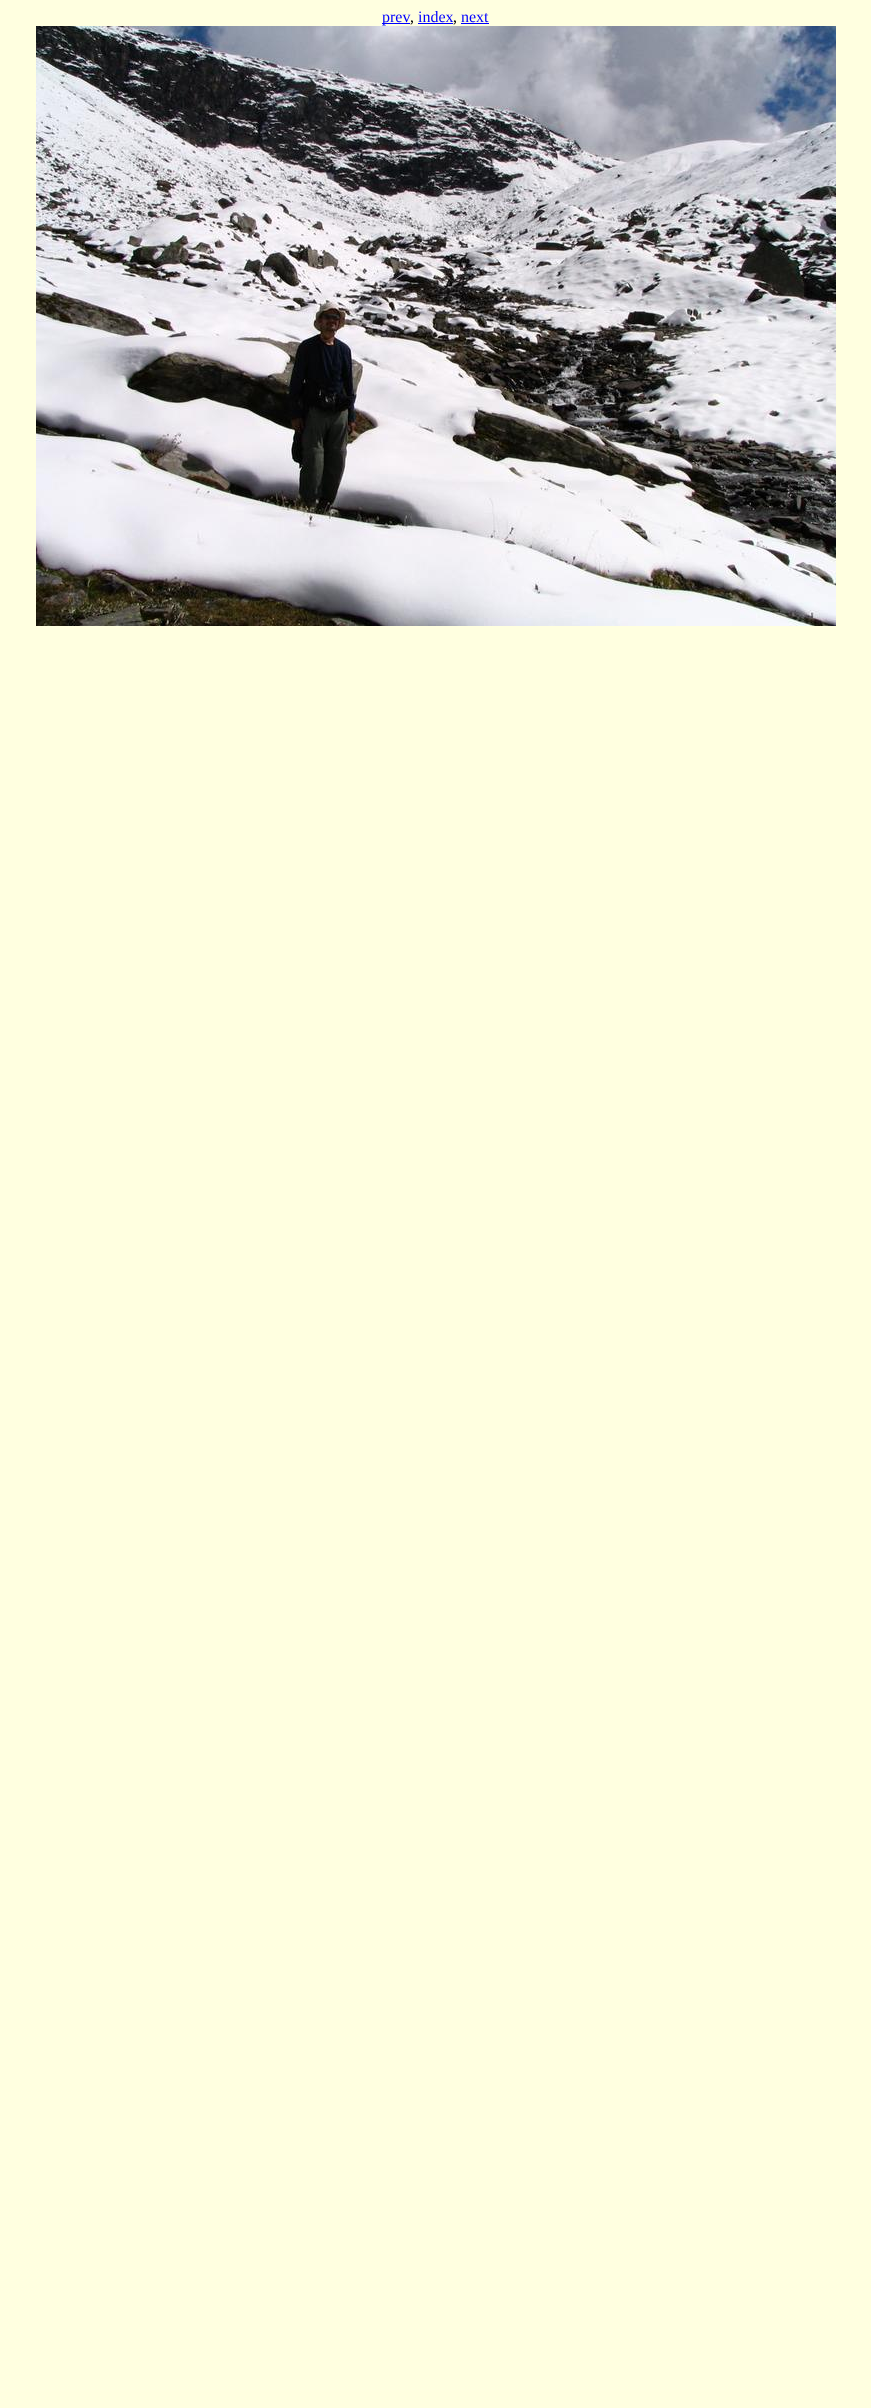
<svg xmlns="http://www.w3.org/2000/svg" width="871" height="2408">
<rect width="100%" height="100%" fill="#ffffe0"/>
<rect x="382" y="23" width="28" height="1" fill="#00f"/>
<text x="382" y="22" style="font-family:Liberation Serif;font-size:16px;fill:#00f">prev</text>
<text x="410" y="22" style="font-family:Liberation Serif;font-size:16px;fill:#000">,</text>
<text x="418" y="22" style="font-family:Liberation Serif;font-size:16px;fill:#00f">index</text>
<rect x="418" y="23" width="35" height="1" fill="#00f"/>
<text x="453" y="22" style="font-family:Liberation Serif;font-size:16px;fill:#000">,</text>
<text x="461" y="22" style="font-family:Liberation Serif;font-size:16px;fill:#00f">next</text>
<rect x="461" y="23" width="28" height="1" fill="#00f"/>
<image x="36" y="26" width="800" height="600" href="media/1.png"/>
</svg>
